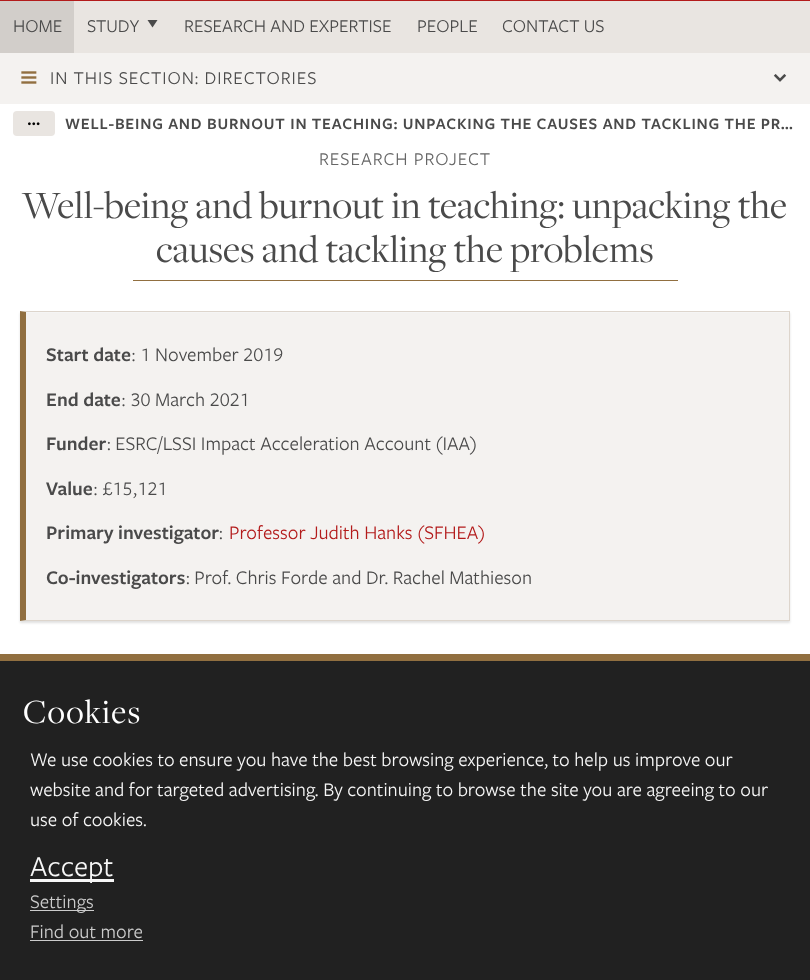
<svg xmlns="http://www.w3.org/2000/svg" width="810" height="980">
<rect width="100%" height="100%" fill="#fff"/>
<rect width="810" height="1" fill="#b31b1b"/>
<rect x="74" y="1" width="736" height="52" fill="#e9e5e1"/>
<rect y="1" width="74" height="52" fill="#d2ceca"/>
<text x="13" y="32" style="font-family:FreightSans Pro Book;font-size:18.75px;fill:#4a4a4a">HOME</text>
<text x="87" y="32" style="font-family:FreightSans Pro Book;font-size:18.75px;fill:#4a4a4a">STUDY</text>
<path d="M157.5 20l-5 7.5l-5-7.5z" fill="#4a4a4a"/>
<text x="184" y="32" style="font-family:FreightSans Pro Book;font-size:18.75px;fill:#4a4a4a">RESEARCH AND EXPERTISE</text>
<text x="417" y="32" style="font-family:FreightSans Pro Book;font-size:18.75px;fill:#4a4a4a">PEOPLE</text>
<text x="502" y="32" style="font-family:FreightSans Pro Book;font-size:18.75px;fill:#4a4a4a">CONTACT US</text>
<rect y="53" width="810" height="51" fill="#f4f2f0"/>
<image x="21" y="71" width="16" height="13" href="media/1.png"/>
<text x="50" y="84" style="font-family:FreightSans Pro Book;font-size:18.75px;letter-spacing:0.95px;fill:#4a4a4a">IN THIS SECTION: DIRECTORIES</text>
<image x="773" y="74" width="14" height="8" href="media/2.png"/>
<rect x="13" y="111" width="42" height="25" rx="4" fill="#e9e5e1"/>
<image x="28" y="122" width="12" height="4" href="media/3.png"/>
<text x="65" y="129" style="font-family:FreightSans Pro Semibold;font-size:16.25px;font-weight:600;letter-spacing:0.8px;fill:#4a4a4a">WELL-BEING AND BURNOUT IN TEACHING: UNPACKING THE CAUSES AND TACKLING THE PR…</text>
<text x="319" y="165" style="font-family:FreightSans Pro Book;font-size:18.75px;letter-spacing:0.95px;fill:#666">RESEARCH PROJECT</text>
<text x="22" y="218" style="font-family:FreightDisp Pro;font-size:40px;fill:#4a4a4a">Well-being and burnout in teaching: unpacking the</text>
<text x="156" y="262" style="font-family:FreightDisp Pro;font-size:40px;fill:#4a4a4a">causes and tackling the problems</text>
<rect x="133" y="280" width="545" height="1" fill="#916f40"/>
<rect x="20" y="313" width="770" height="310" fill="#0000001f" filter="blur(1px)"/>
<rect x="26" y="313" width="763" height="307" fill="#f4f2f0"/>
<path d="M20 311h770l-1 1h-763z" fill="#ddd5cc"/>
<rect x="789" y="311" width="1" height="310" fill="#ddd5cc"/>
<path d="M790 621h-770l6-1h763z" fill="#ddd5cc"/>
<path d="M20 621v-310l6 1v308z" fill="#916f40"/>
<text x="46" y="361" style="font-family:FreightSans Pro Semibold;font-size:20px;font-weight:600;fill:#4a4a4a">Start date</text>
<text x="131" y="361" style="font-family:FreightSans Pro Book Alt;font-size:20px;fill:#4a4a4a">: 1 November 2019</text>
<text x="46" y="406" style="font-family:FreightSans Pro Semibold;font-size:20px;font-weight:600;fill:#4a4a4a">End date</text>
<text x="121" y="406" style="font-family:FreightSans Pro Book Alt;font-size:20px;fill:#4a4a4a">: 30 March 2021</text>
<text x="46" y="450" style="font-family:FreightSans Pro Semibold;font-size:20px;font-weight:600;fill:#4a4a4a">Funder</text>
<text x="107" y="450" style="font-family:FreightSans Pro Book;font-size:20px;fill:#4a4a4a">: ESRC/LSSI Impact Acceleration Account (IAA)</text>
<text x="46" y="495" style="font-family:FreightSans Pro Semibold;font-size:20px;font-weight:600;fill:#4a4a4a">Value</text>
<text x="93" y="495" style="font-family:FreightSans Pro Book Alt;font-size:20px;fill:#4a4a4a">: £15,121</text>
<text x="46" y="539" style="font-family:FreightSans Pro Semibold;font-size:20px;font-weight:600;fill:#4a4a4a">Primary investigator</text>
<text x="219" y="539" style="font-family:FreightSans Pro Book;font-size:20px;fill:#4a4a4a">:</text>
<text x="229" y="539" style="font-family:FreightSans Pro Book;font-size:20px;fill:#b31b1b">Professor Judith Hanks (SFHEA)</text>
<text x="46" y="584" style="font-family:FreightSans Pro Semibold;font-size:20px;font-weight:600;fill:#4a4a4a">Co-investigators</text>
<text x="186" y="584" style="font-family:FreightSans Pro Book;font-size:20px;fill:#4a4a4a">: Prof. Chris Forde and Dr. Rachel Mathieson</text>
<rect y="661" width="810" height="319" fill="#212121"/>
<rect y="654" width="810" height="7" fill="#916f40"/>
<text x="23" y="723" style="font-family:FreightDisp Pro;font-size:35px;letter-spacing:1.25px;fill:#fff">Cookies</text>
<text x="30" y="766" style="font-family:FreightSans Pro Book;font-size:20px;fill:#f7f7f7">We use cookies to ensure you have the best browsing experience, to help us improve our</text>
<text x="30" y="796" style="font-family:FreightSans Pro Book;font-size:20px;fill:#f7f7f7">website and for targeted advertising. By continuing to browse the site you are agreeing to our</text>
<text x="30" y="826" style="font-family:FreightSans Pro Book;font-size:20px;fill:#f7f7f7">use of cookies.</text>
<rect x="30" y="879" width="84" height="3" fill="#f7f7f7"/>
<text x="30" y="876" style="font-family:FreightSans Pro Book;font-size:30px;fill:#f7f7f7">Accept</text>
<rect x="30" y="910" width="64" height="1" fill="#ccc"/>
<text x="30" y="908" style="font-family:FreightSans Pro Book;font-size:20px;fill:#ccc">Settings</text>
<text x="30" y="938" style="font-family:FreightSans Pro Book;font-size:20px;fill:#ccc">Find out more</text>
<rect x="30" y="940" width="113" height="1" fill="#ccc"/>
</svg>
